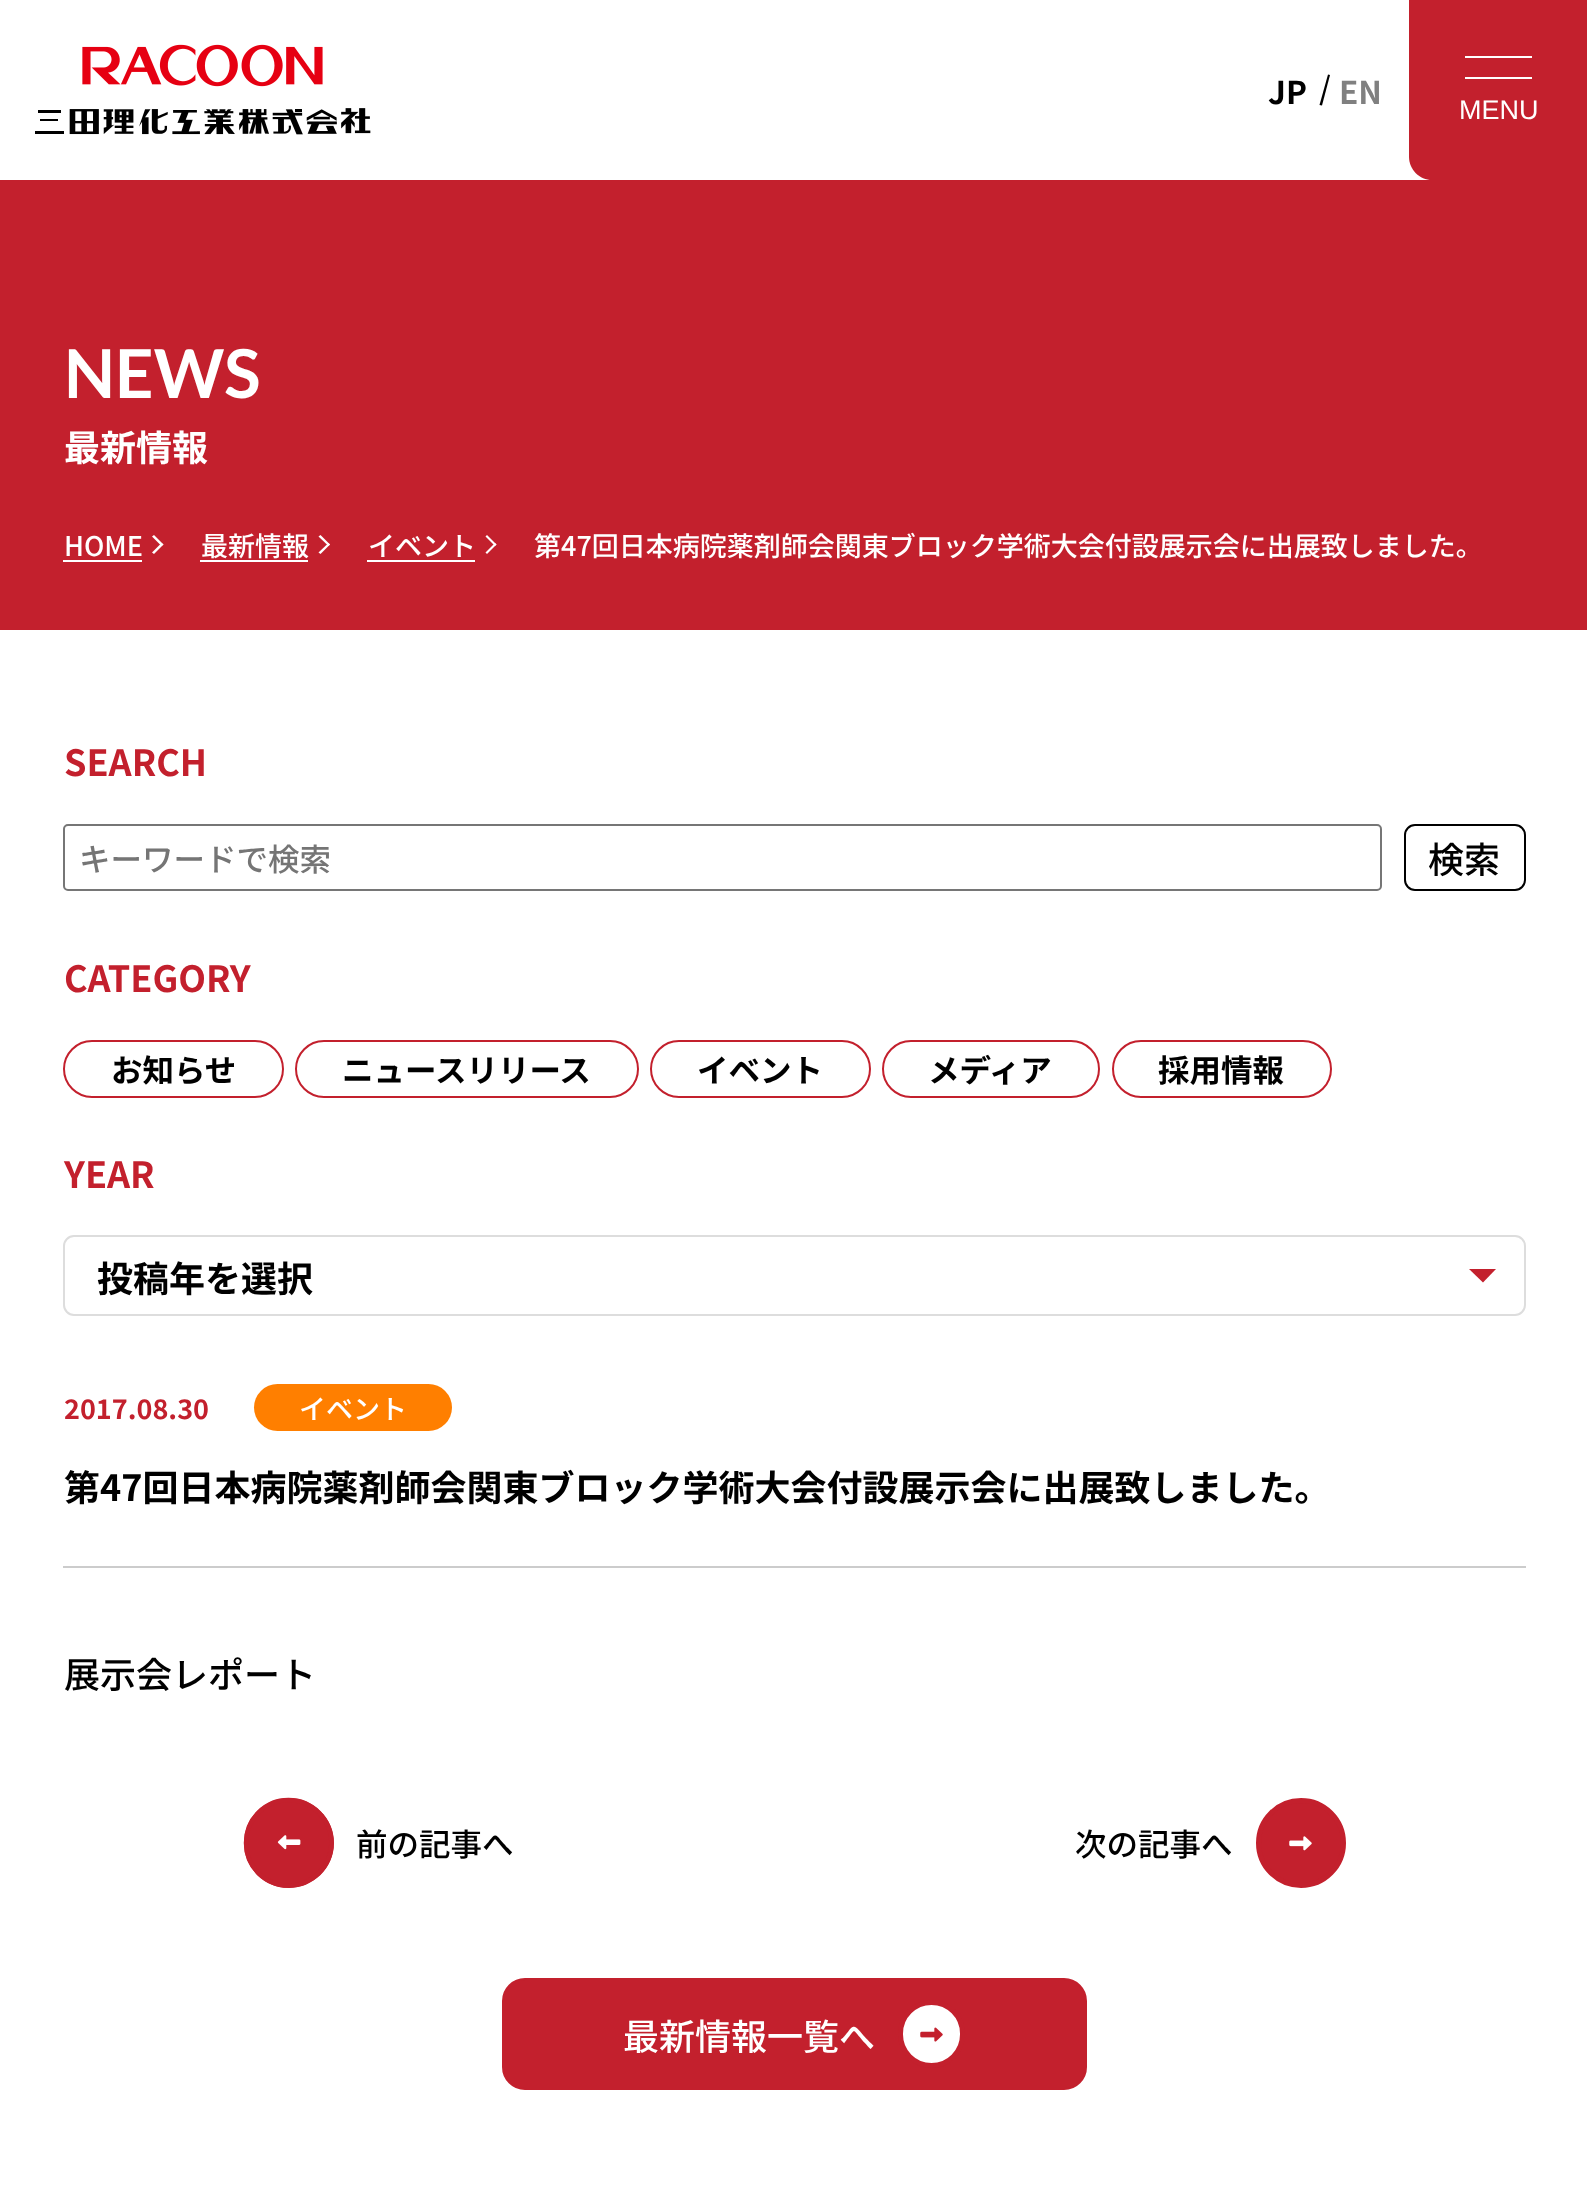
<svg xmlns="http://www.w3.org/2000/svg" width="1587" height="2192">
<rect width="100%" height="100%" fill="#fff"/>
<image x="35" y="44" width="336" height="91" href="media/1.png"/>
<text x="1268" y="104" style="font-family:Noto Sans JP;font-size:31.5px;font-weight:bold;fill:#000">JP</text>
<path d="M1328 74.5l2 .5l-8 30.5l-2.5-.5z" fill="#000"/>
<text x="1339" y="104" style="font-family:Noto Sans JP;font-size:31.5px;font-weight:bold;fill:#808080">EN</text>
<path d="M1409 0h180v180h-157c-12.5 0-23-10.5-23-23z" fill="#c3202d"/>
<rect x="1465" y="56" width="67" height="2" fill="#fff"/>
<rect x="1465" y="77" width="67" height="2" fill="#fff"/>
<text x="1459" y="119" style="font-family:Liberation Sans;font-size:27px;fill:#fff">MENU</text>
<rect y="180" width="1587" height="450" fill="#c3202d"/>
<text x="64" y="398" style="font-family:Lato;font-size:67.5px;font-weight:bold;fill:#fff">NEWS</text>
<text x="64" y="461" style="font-family:Noto Sans JP;font-size:36px;font-weight:bold;fill:#fff">最新情報</text>
<text x="64" y="556" style="font-family:Noto Sans JP;font-size:27px;font-weight:500;fill:#fff">HOME</text>
<path d="M152 536.5l2-1.5l9.5 9.5l-2 1.5z" fill="#fff"/>
<path d="M152 552.5l9.5-9.5l2 1.5l-9.5 9.5z" fill="#fff"/>
<rect x="63" y="560" width="79" height="2" fill="#fff"/>
<text x="201" y="556" style="font-family:Noto Sans JP;font-size:27px;font-weight:500;fill:#fff">最新情報</text>
<path d="M318.5 536.5l2-1.5l9.5 9.5l-1.5 1.5z" fill="#fff"/>
<path d="M318.5 552.5l10-9.5l1.5 1.5l-9.5 9.5z" fill="#fff"/>
<rect x="200" y="560" width="108" height="2" fill="#fff"/>
<text x="368" y="556" style="font-family:Noto Sans JP;font-size:27px;font-weight:500;fill:#fff">イベント</text>
<path d="M485.5 536.5l1.5-1.5l9.5 9.5l-1.5 1.5z" fill="#fff"/>
<path d="M485.5 552.5l9.5-9.5l1.5 1.5l-9.5 9.5z" fill="#fff"/>
<rect x="367" y="560" width="108" height="2" fill="#fff"/>
<text x="534" y="556" style="font-family:Noto Sans JP;font-size:27px;font-weight:500;fill:#fff">第47回日本病院薬剤師会関東ブロック学術大会付設展示会に出展致しました。</text>
<text x="64" y="776" style="font-family:Noto Sans JP;font-size:36px;font-weight:bold;fill:#c3202d">SEARCH</text>
<rect x="64" y="825" width="1317" height="65" rx="4" fill="none" stroke="#767676" stroke-width="2"/>
<text x="79" y="871" style="font-family:Noto Sans JP;font-size:31.5px;font-weight:500;fill:#757575">キーワードで検索</text>
<rect x="1405" y="825" width="120" height="65" rx="10" fill="none" stroke="#000" stroke-width="2"/>
<text x="1428" y="873" style="font-family:Noto Sans JP;font-size:36px;font-weight:500;fill:#000">検索</text>
<text x="64" y="992" style="font-family:Noto Sans JP;font-size:36px;font-weight:bold;fill:#c3202d">CATEGORY</text>
<rect x="64" y="1041" width="219" height="56" rx="28" fill="none" stroke="#c3202d" stroke-width="2"/>
<text x="111" y="1082" style="font-family:Noto Sans JP;font-size:31.5px;font-weight:bold;fill:#000">お知らせ</text>
<rect x="296" y="1041" width="342" height="56" rx="28" fill="none" stroke="#c3202d" stroke-width="2"/>
<text x="342" y="1082" style="font-family:Noto Sans JP;font-size:31.5px;font-weight:bold;fill:#000">ニュースリリース</text>
<rect x="651" y="1041" width="219" height="56" rx="28" fill="none" stroke="#c3202d" stroke-width="2"/>
<text x="697" y="1082" style="font-family:Noto Sans JP;font-size:31.5px;font-weight:bold;fill:#000">イベント</text>
<rect x="883" y="1041" width="216" height="56" rx="28" fill="none" stroke="#c3202d" stroke-width="2"/>
<text x="928" y="1082" style="font-family:Noto Sans JP;font-size:31.5px;font-weight:bold;fill:#000">メディア</text>
<rect x="1113" y="1041" width="218" height="56" rx="28" fill="none" stroke="#c3202d" stroke-width="2"/>
<text x="1158" y="1082" style="font-family:Noto Sans JP;font-size:31.5px;font-weight:bold;fill:#000">採用情報</text>
<text x="64" y="1188" style="font-family:Noto Sans JP;font-size:36px;font-weight:bold;fill:#c3202d">YEAR</text>
<rect x="64" y="1236" width="1461" height="79" rx="10" fill="none" stroke="#ddd" stroke-width="2"/>
<text x="97" y="1292" style="font-family:Noto Sans JP;font-size:36px;font-weight:bold;fill:#000">投稿年を選択</text>
<path d="M1469 1269h27l-13 13.5z" fill="#c3202d"/>
<rect x="63" y="1566" width="1463" height="2" fill="#ccc"/>
<text x="64" y="1419" style="font-family:Noto Sans JP;font-size:27px;font-weight:bold;fill:#c3202d">2017.08.30</text>
<rect x="254" y="1384" width="198" height="47" rx="23.5" fill="#ff7f00"/>
<text x="299" y="1419" style="font-family:Noto Sans JP;font-size:27px;font-weight:500;fill:#fff">イベント</text>
<text x="64" y="1501" style="font-family:Noto Sans JP;font-size:36px;font-weight:bold;fill:#000">第47回日本病院薬剤師会関東ブロック学術大会付設展示会に出展致しました。</text>
<text x="64" y="1688" style="font-family:Noto Sans JP;font-size:36px;font-weight:500;fill:#000">展示会レポート</text>
<path d="M289 1888c-25 0-45-20-45-45c0-25 20-45 45-45c24 0 45 20 45 45c0 25-21 45-45 45z" fill="#c3202d"/>
<path d="M288.5 1885.5c-23.5 0-42.5-19-42.5-42.5c0-24 19-43 42.5-43c23.5 0 43 19 43 43c0 23.5-19.5 42.5-43 42.5z" fill="none" stroke="#c3202d" stroke-width="4.5"/>
<image x="277" y="1835" width="24" height="15" href="media/2.png"/>
<text x="356" y="1856" style="font-family:Noto Sans JP;font-size:31.5px;font-weight:500;fill:#000">前の記事へ</text>
<text x="1075" y="1856" style="font-family:Noto Sans JP;font-size:31.5px;font-weight:500;fill:#000">次の記事へ</text>
<circle cx="1301" cy="1843" r="42.5" fill="#c3202d" stroke="#c3202d" stroke-width="5"/>
<image x="1289" y="1836" width="23" height="15" href="media/3.png"/>
<rect x="503" y="1979" width="583" height="110" rx="22" fill="#c3202d" stroke="#c3202d" stroke-width="2"/>
<text x="623" y="2050" style="font-family:Noto Sans JP;font-size:36px;font-weight:500;fill:#fff">最新情報一覧へ</text>
<rect x="900.5" y="2002.5" width="62" height="63" rx="31" fill="#fff" stroke="#c3202d" stroke-width="5"/>
<image x="920" y="2027" width="23" height="15" href="media/4.png"/>
</svg>
